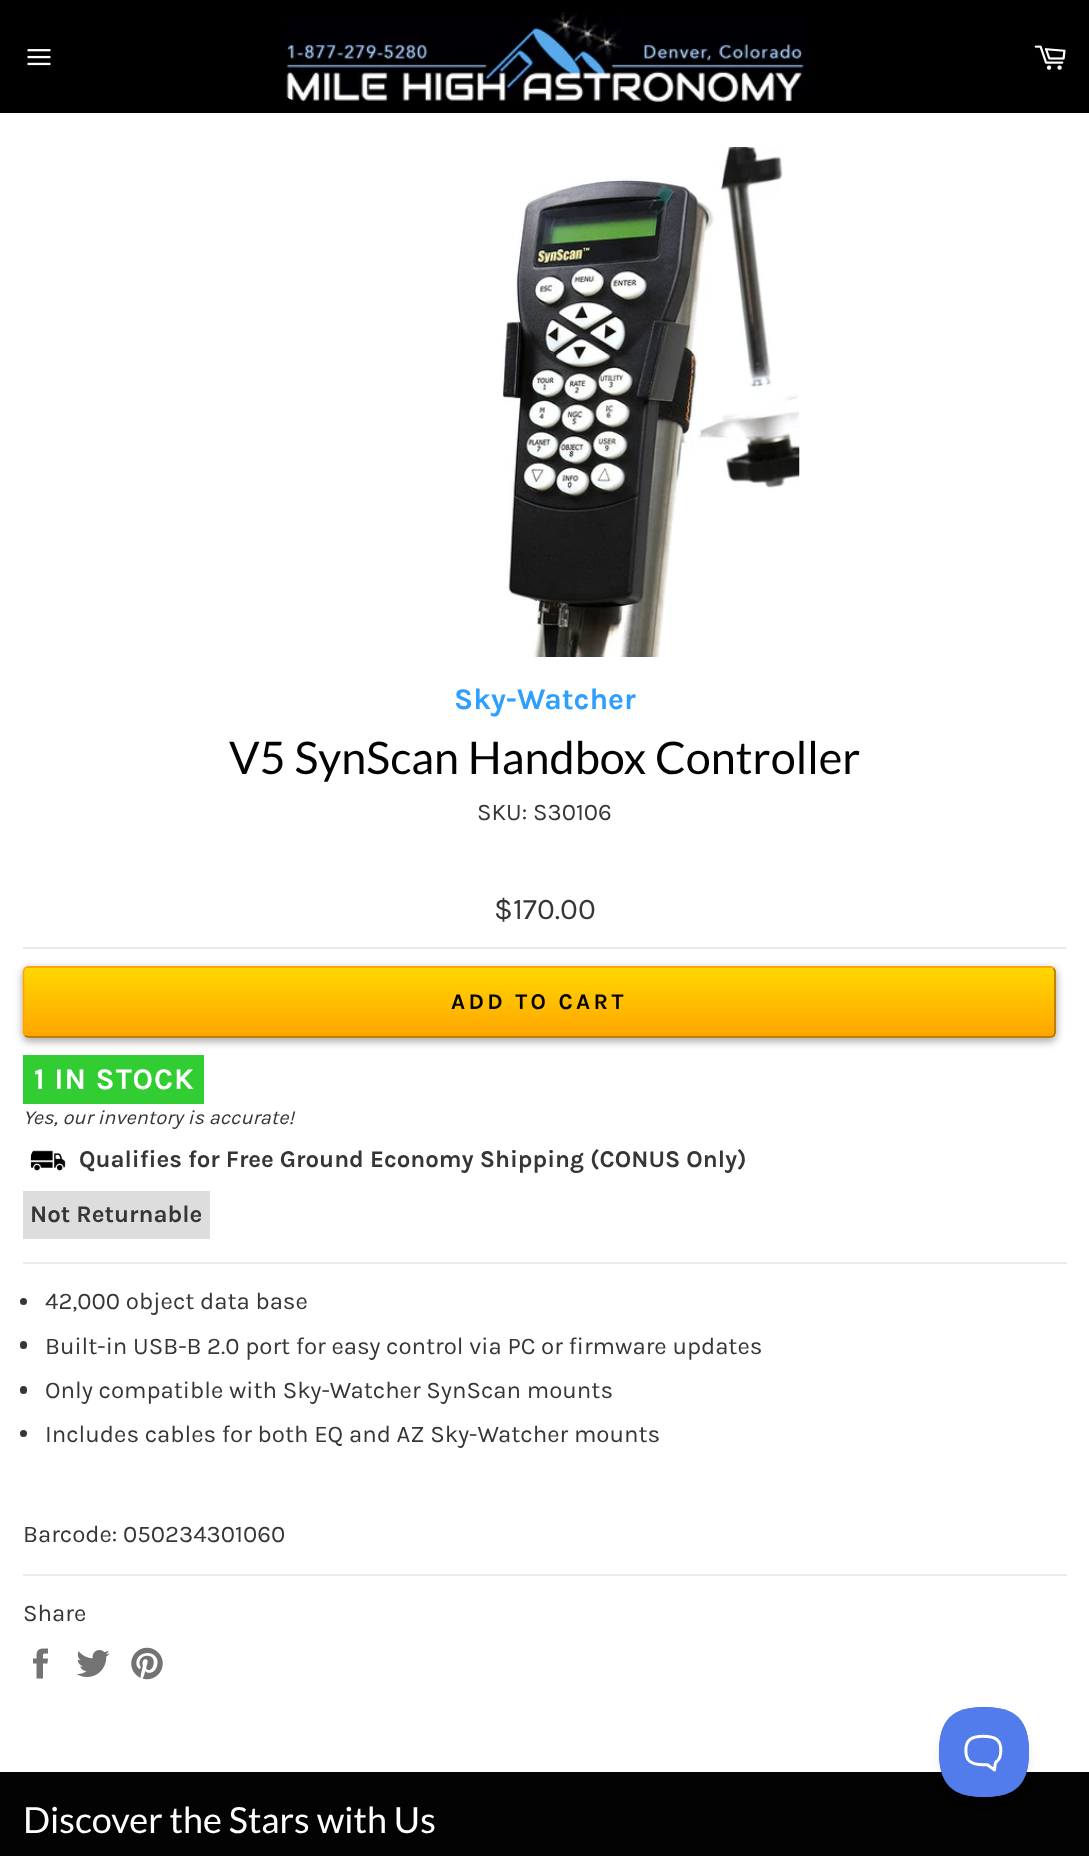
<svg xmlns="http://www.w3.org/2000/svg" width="1089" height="1856">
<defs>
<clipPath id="clip1"><rect x="23" y="966" width="1033" height="72" rx="6"/></clipPath>
<linearGradient id="g1" gradientUnits="userSpaceOnUse" x1="539" y1="899" x2="539" y2="968"><stop offset="0" stop-color="#ffd700"/><stop offset="1" stop-color="#ffa500"/></linearGradient>
<linearGradient id="g2" gradientUnits="userSpaceOnUse" x1="539" y1="968" x2="539" y2="1037"><stop offset="0" stop-color="#ffd700"/><stop offset="1" stop-color="#ffa500"/></linearGradient>
<linearGradient id="g3" gradientUnits="userSpaceOnUse" x1="539" y1="1037" x2="539" y2="1106"><stop offset="0" stop-color="#ffd700"/><stop offset="1" stop-color="#ffa500"/></linearGradient>
</defs>
<rect width="100%" height="100%" fill="#000"/>
<image x="27" y="49" width="24" height="17" href="media/1.png"/>
<image x="283" y="12" width="528" height="90" href="media/2.png"/>
<image x="1034" y="45" width="32" height="25" href="media/3.png"/>
<rect y="113" width="1089" height="1659" fill="#fff"/>
<image x="502" y="147" width="298" height="510" href="media/4.png"/>
<text x="454" y="709" style="font-family:Karla;font-size:30px;font-weight:bold;fill:#2e9eff">Sky-Watcher</text>
<text x="229" y="774" style="font-family:Lato;font-size:45px;fill:#030303">V5 SynScan Handbox Controller</text>
<text x="477" y="820" style="font-family:Karla;font-size:24px;fill:#363636">SKU: S30106</text>
<text x="494" y="919" style="font-family:Karla;font-size:30px;fill:#363636">$170.00</text>
<rect x="23" y="947" width="1044" height="2" fill="#ebebeb"/>
<rect x="23" y="969" width="1033" height="72" rx="6" fill="#00000030" filter="blur(4.5px)"/>
<rect x="23" y="969" width="1033" height="72" rx="6" fill="#00000033" filter="blur(4.5px)"/>
<g clip-path="url(#clip1)">
<rect x="23" y="966" width="1033" height="2" fill="url(#g1)"/>
<rect x="23" y="968" width="1033" height="69" fill="url(#g2)"/>
<rect x="23" y="1037" width="1033" height="1" fill="url(#g3)"/>
</g>
<path d="M1053.5 968.5l1.5 2.5v61.5l-1 3c-1 1-2.5 1.5-4 1.5h-1021.5c-1.5 0-2.5-.5-3.5-1.5" fill="none" stroke="#aa6e00" stroke-width="1.5"/>
<path d="M25 1035.5l-1.5-2.5v-61.5l1-3c1-1 2.5-1.5 4-1.5h1021.5c1.5 0 2.5 .5 3.5 1.5" fill="none" stroke="#ffa500" stroke-width="1.5"/>
<text x="451" y="1009" style="font-family:Karla;font-size:22.5px;font-weight:bold;letter-spacing:3.4px;fill:#030303">ADD TO CART</text>
<rect x="23" y="1055" width="181" height="49" fill="#32cd32"/>
<text x="34" y="1089" style="font-family:Karla;font-size:30px;font-weight:bold;letter-spacing:1px;fill:#fff">1 IN STOCK</text>
<text x="23" y="1124" style="font-family:Karla;font-size:20px;font-style:italic;fill:#363636">Yes, our inventory is accurate!</text>
<image x="30" y="1150" width="36" height="21" href="media/5.png"/>
<text x="79" y="1167" style="font-family:Karla;font-size:24px;font-weight:bold;fill:#363636">Qualifies for Free Ground Economy Shipping (CONUS Only)</text>
<rect x="23" y="1191" width="187" height="48" fill="#ddd"/>
<text x="30" y="1222" style="font-family:Karla;font-size:24px;font-weight:bold;fill:#363636">Not Returnable</text>
<rect x="23" y="1262" width="1044" height="2" fill="#ebebeb"/>
<circle cx="23.5" cy="1301.5" r="3.5" fill="#363636"/>
<text x="45" y="1309" style="font-family:Karla;font-size:24px;fill:#363636">42,000 object data base</text>
<rect x="20" y="1341" width="7" height="8" rx="3.5" fill="#363636"/>
<text x="45" y="1354" style="font-family:Karla;font-size:24px;fill:#363636">Built-in USB-B 2.0 port for easy control via PC or firmware updates</text>
<rect x="20" y="1386" width="7" height="8" rx="3.5" fill="#363636"/>
<text x="45" y="1398" style="font-family:Karla;font-size:24px;fill:#363636">Only compatible with Sky-Watcher SynScan mounts</text>
<circle cx="23.5" cy="1433.5" r="3.5" fill="#363636"/>
<text x="45" y="1442" style="font-family:Karla;font-size:24px;fill:#363636">Includes cables for both EQ and AZ Sky-Watcher mounts</text>
<text x="23" y="1542" style="font-family:Karla;font-size:24px;fill:#363636">Barcode: 050234301060</text>
<rect x="23" y="1574" width="1044" height="2" fill="#ebebeb"/>
<text x="23" y="1621" style="font-family:Karla;font-size:24px;fill:#363636">Share</text>
<image x="33" y="1648" width="15" height="31" href="media/6.png"/>
<image x="76" y="1650" width="34" height="27" href="media/7.png"/>
<image x="131" y="1647" width="32" height="33" href="media/8.png"/>
<rect y="1772" width="1089" height="84" fill="#030303"/>
<text x="23" y="1833" style="font-family:Lato;font-size:36px;fill:#fff">Discover the Stars with Us</text>
<rect x="939" y="1713" width="90" height="90" rx="45" fill="#0000001a" filter="blur(5px)"/>
<image x="939" y="1707" width="90" height="90" href="media/9.png"/>
</svg>
